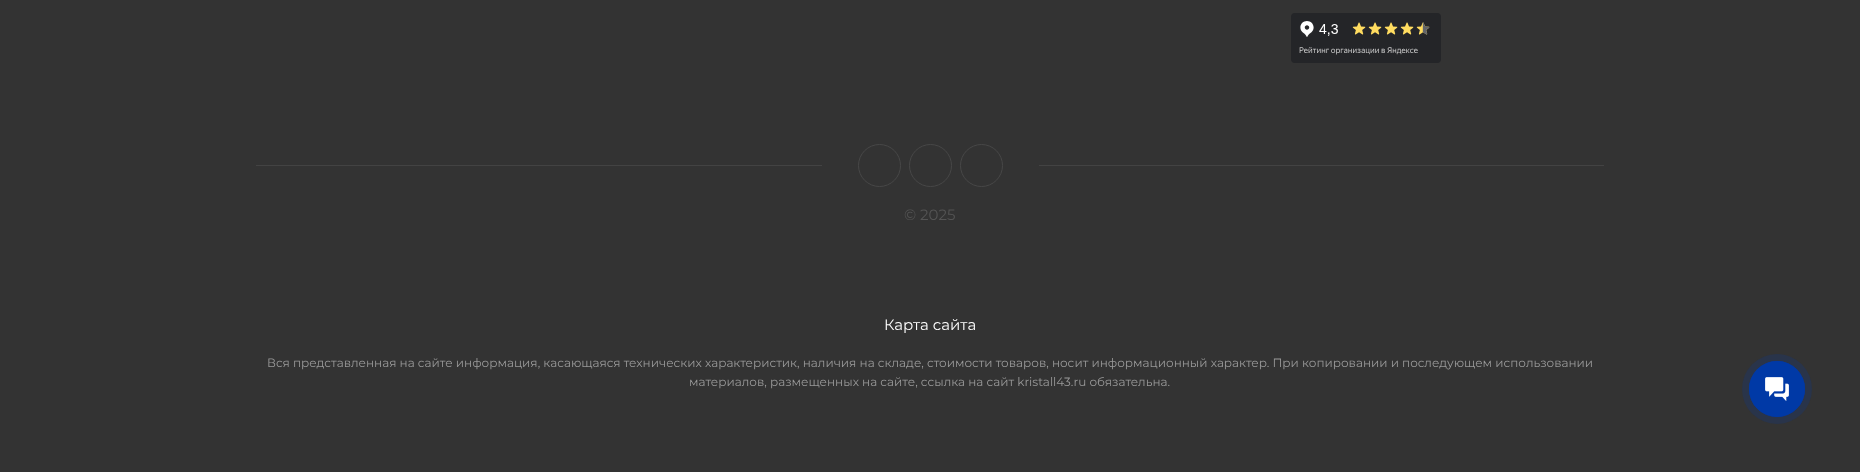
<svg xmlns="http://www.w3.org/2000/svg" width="1860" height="472">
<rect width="100%" height="100%" fill="#333"/>
<image x="1291" y="13" width="150" height="50" href="media/1.png"/>
<rect x="256" y="165" width="1348" height="1" fill="#434343"/>
<rect x="822" y="165" width="217" height="1" fill="#333"/>
<circle cx="879.5" cy="165.5" r="21" fill="none" stroke="#474747"/>
<circle cx="930.5" cy="165.5" r="21" fill="none" stroke="#474747"/>
<circle cx="981.5" cy="165.5" r="21" fill="none" stroke="#474747"/>
<text x="904" y="220" style="font-family:Montserrat;font-size:15px;fill:#545454">© 2025</text>
<text x="884" y="330" style="font-family:Montserrat;font-size:15px;fill:#fff">Карта сайта</text>
<text x="267" y="367" style="font-family:Montserrat;font-size:12px;fill:#999">Вся представленная на сайте информация, касающаяся технических характеристик, наличия на складе, стоимости товаров, носит информационный характер. При копировании и последующем использовании</text>
<text x="689" y="386" style="font-family:Montserrat;font-size:12px;fill:#999">материалов, размещенных на сайте, ссылка на сайт kristall43.ru обязательна.</text>
<circle cx="1777" cy="389" r="35" fill="#29344a"/>
<circle cx="1777" cy="389" r="27.6" fill="none" stroke="#0039a6" stroke-width="0.8"/>
<circle cx="1777" cy="389" r="28" fill="#0039a6"/>
<image x="1765" y="377" width="24" height="24" href="media/2.png"/>
</svg>
